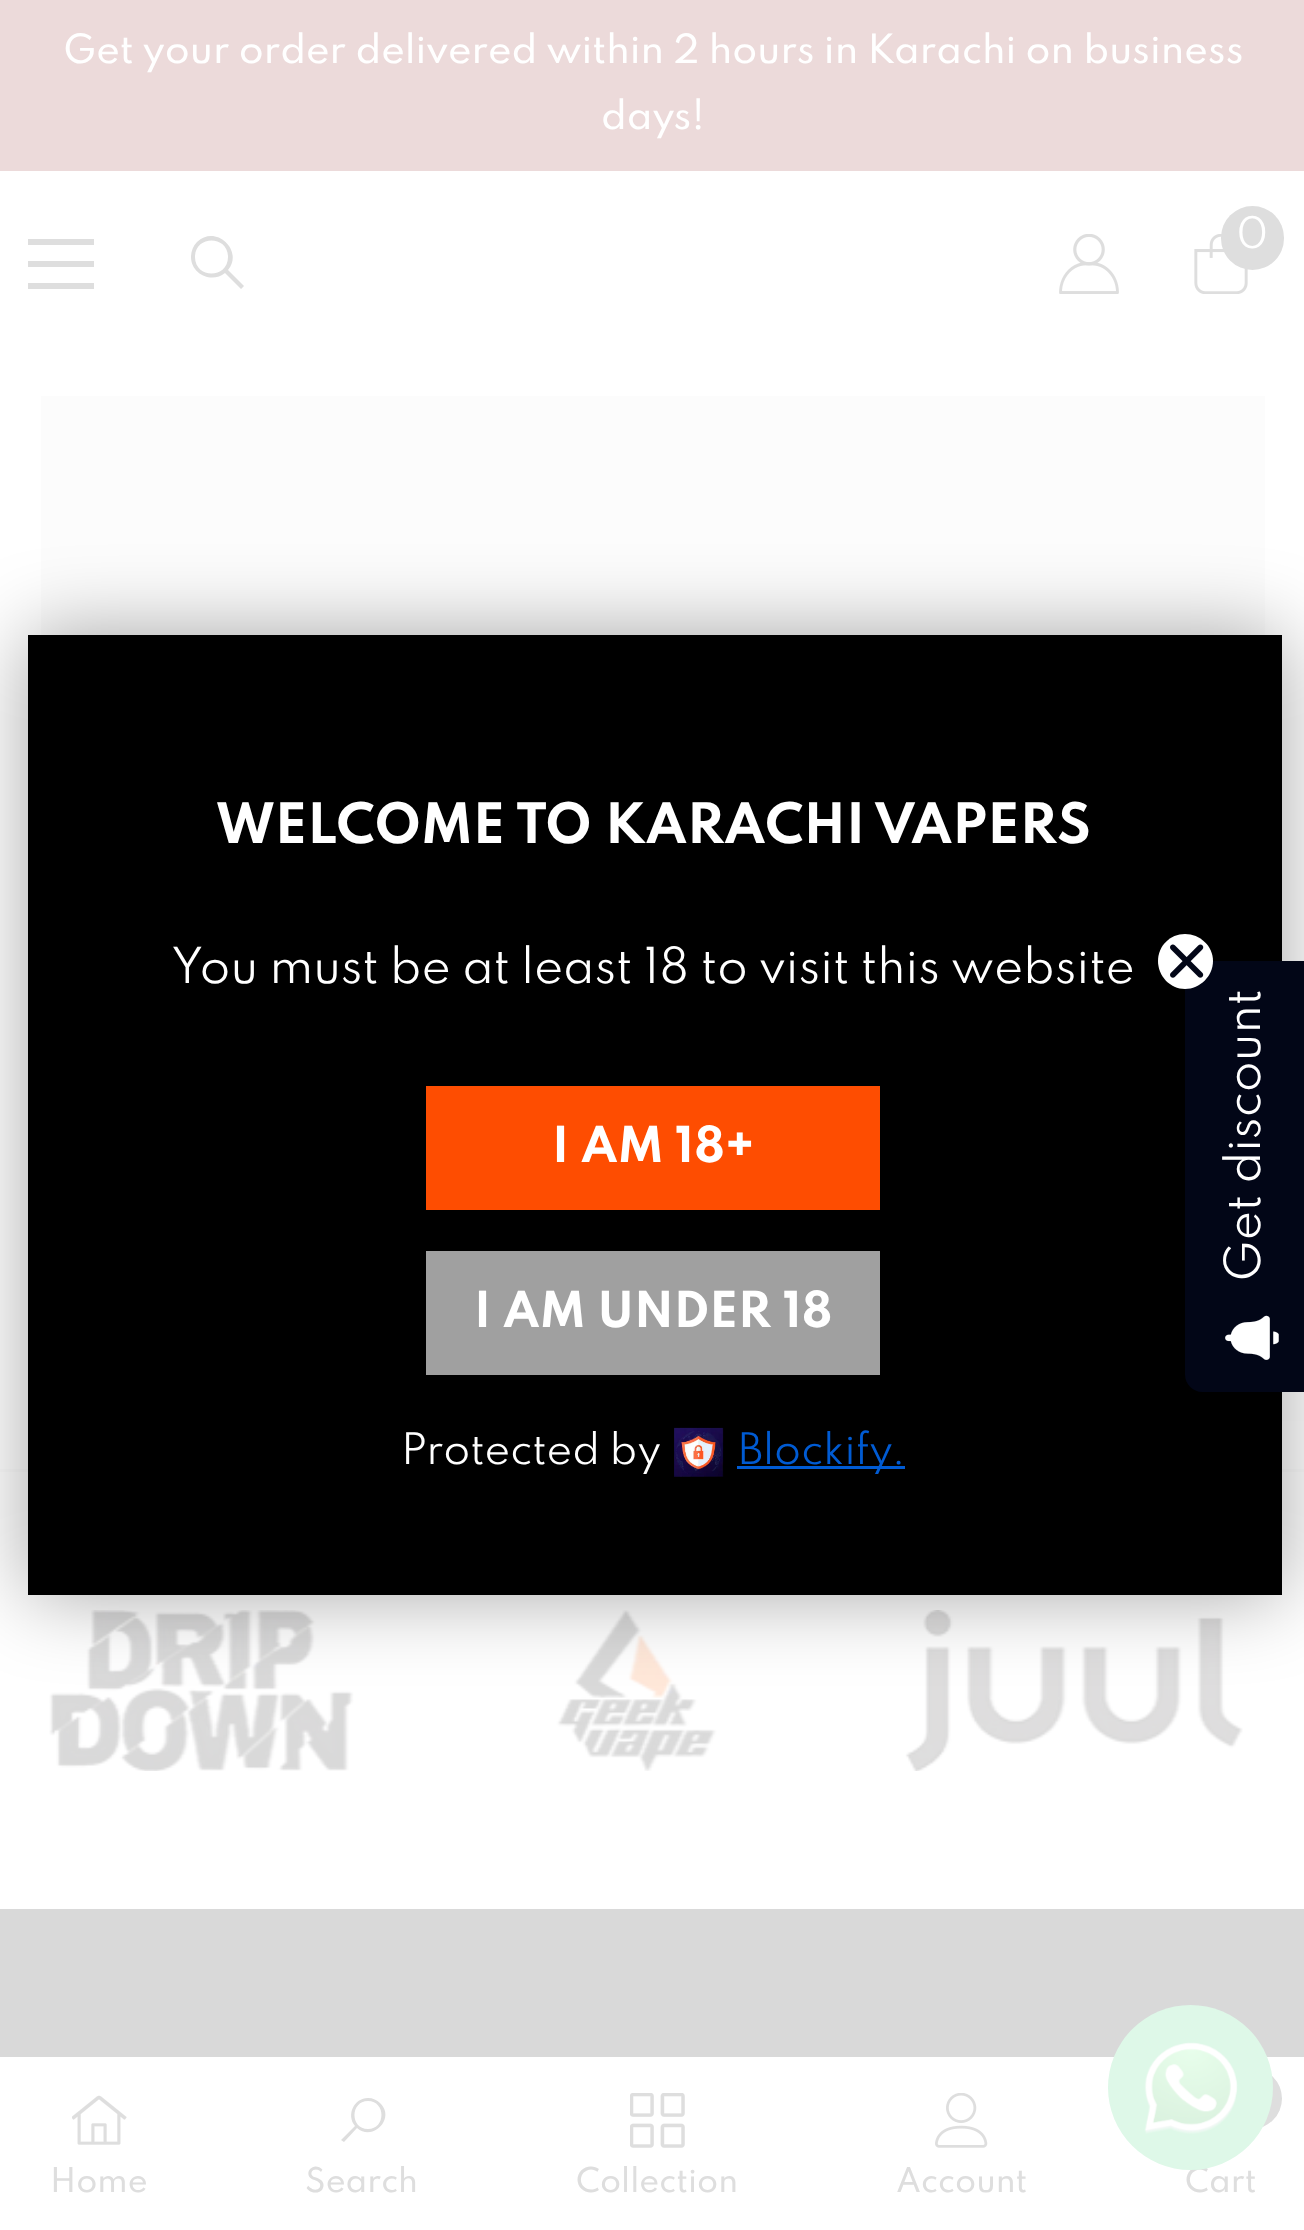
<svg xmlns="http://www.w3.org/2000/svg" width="1304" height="2230">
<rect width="100%" height="100%" fill="#fff"/>
<rect width="1304" height="171" fill="#ecdada"/>
<text x="63" y="63" style="font-family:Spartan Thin;font-size:35.75px;font-weight:500;fill:#fff">Get your order delivered within 2 hours in Karachi on business</text>
<text x="601" y="129" style="font-family:Spartan Thin;font-size:35.75px;font-weight:500;fill:#fff">days!</text>
<rect x="28" y="261" width="66" height="6" fill="#dedede"/>
<rect x="28" y="239" width="66" height="6" fill="#dedede"/>
<rect x="28" y="283" width="66" height="6" fill="#dedede"/>
<path d="M191 257c0 17 21 27 34 16l16 16l3-3l-16-16c16-19-12-46-31-28c-4 4-6 10-6 15zm4 0c0-22 33-22 33 0c0 22-33 22-33 0z" fill="#dedede"/>
<image x="1059" y="234" width="60" height="60" href="media/1.png"/>
<image x="1194" y="234" width="54" height="60" href="media/2.png"/>
<rect x="1221" y="206" width="63" height="64" rx="31.5" fill="#dedede"/>
<text x="1236" y="248" style="font-family:Spartan Thin;font-size:38.5px;fill:#fff">0</text>
<rect x="41" y="396" width="1224" height="239" fill="#fcfcfc"/>
<rect y="1469" width="1304" height="3" fill="#fcfcfc"/>
<image x="49" y="1610" width="305" height="161" href="media/3.png"/>
<image x="556" y="1610" width="161" height="161" href="media/4.png"/>
<image x="905" y="1610" width="338" height="161" href="media/5.png"/>
<rect y="1909" width="1304" height="148" fill="#d9d9d9"/>
<image x="72" y="2095" width="55" height="50" href="media/6.png"/>
<text x="50" y="2192" style="font-family:Spartan Thin;font-size:30.25px;font-weight:500;fill:#dedede">Home</text>
<path d="M368 2098c-14 0-22 17-13 28l-14 14l3 2l13-14c16 14 39-10 23-25c-3-3-7-5-12-5zm0 3c18 0 18 28 0 28c-18 0-18-28 0-28z" fill="#dedede"/>
<text x="305" y="2192" style="font-family:Spartan Thin;font-size:30.25px;font-weight:500;fill:#dedede">Search</text>
<image x="630" y="2093" width="55" height="55" href="media/7.png"/>
<text x="576" y="2192" style="font-family:Spartan Thin;font-size:30.25px;font-weight:500;fill:#dedede">Collection</text>
<image x="935" y="2093" width="53" height="55" href="media/8.png"/>
<text x="896" y="2192" style="font-family:Spartan Thin;font-size:30.25px;font-weight:500;fill:#dedede">Account</text>
<circle cx="1251.5" cy="2098.5" r="30.5" fill="#dedede"/>
<text x="1185" y="2192" style="font-family:Spartan Thin;font-size:30.25px;font-weight:500;fill:#dedede">Cart</text>
<rect x="28" y="635" width="1254" height="960" fill="#00000059" filter="blur(41px)"/>
<rect x="28" y="635" width="1254" height="960" fill="#000"/>
<text x="216" y="843" style="font-family:Spartan Thin;font-size:49.5px;font-weight:bold;fill:#fff">WELCOME TO KARACHI VAPERS</text>
<text x="171" y="983" style="font-family:Spartan Thin;font-size:44px;fill:#fff">You must be at least 18 to visit this website</text>
<rect x="426" y="1086" width="454" height="124" fill="#fe4d01"/>
<text x="552" y="1162" style="font-family:Spartan Thin;font-size:44px;font-weight:bold;fill:#fff">I AM 18+</text>
<rect x="426" y="1251" width="454" height="124" fill="#a0a0a0"/>
<text x="474" y="1327" style="font-family:Spartan Thin;font-size:44px;font-weight:bold;fill:#fff">I AM UNDER 18</text>
<text x="401" y="1464" style="font-family:Spartan Thin;font-size:38.5px;fill:#fff">Protected by</text>
<image x="674" y="1427" width="50" height="50" href="media/9.png"/>
<rect x="737" y="1466" width="168" height="3" fill="#005bd3"/>
<text x="738" y="1464" style="font-family:Spartan Thin;font-size:38.5px;fill:#005bd3">Blockify.</text>
<rect x="1064" y="1218" width="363" height="55" fill="#00000040" filter="blur(69px)"/>
<path d="M1185 1375v-397c0-9 8-17 17-17h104v431h-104c-9 0-17-8-17-17z" fill="#020617"/>
<path d="M1158 961c0-15 12-27 27-27c15 0 28 12 28 27c0 15-13 28-28 28c-15 0-27-13-27-28z" fill="#fff"/>
<image x="1170" y="944" width="34" height="34" href="media/10.png"/>
<text x="1260" y="1282" transform="rotate(-90 1260 1282)" style="font-family:Spartan Thin;font-size:44px;fill:#fff">Get discount</text>
<image x="1225" y="1315" width="54" height="45" href="media/11.png"/>
<circle cx="1190.5" cy="2087.5" r="82.5" fill="#def8e8"/>
<image x="1144" y="2042" width="94" height="93" href="media/12.png"/>
</svg>
